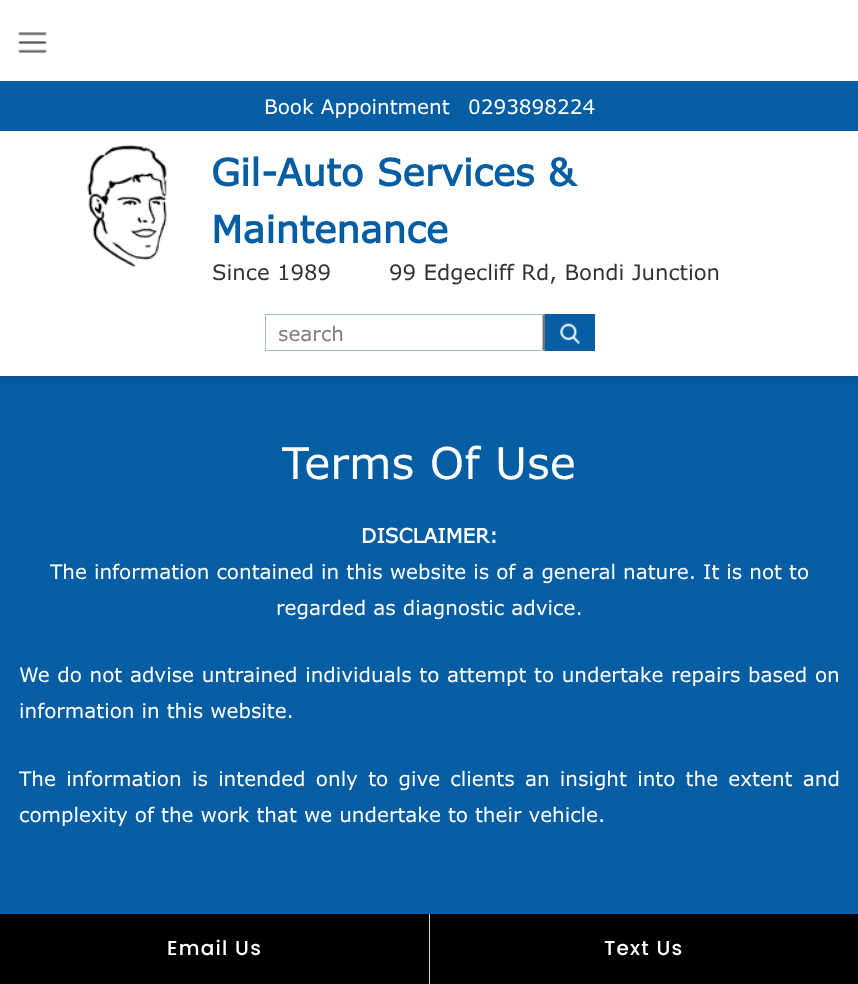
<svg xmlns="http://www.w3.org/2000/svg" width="858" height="984">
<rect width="100%" height="100%" fill="#055ea4"/>
<rect width="858" height="81" fill="#fff"/>
<image x="18" y="32" width="29" height="21" href="media/1.png"/>
<text x="264" y="114" style="font-family:Verdana;font-size:20px;fill:#fff">Book Appointment</text>
<text x="468" y="114" style="font-family:Verdana;font-size:20px;fill:#fff">0293898224</text>
<rect y="135" width="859" height="245" fill="#0000001a" filter="blur(3px)"/>
<rect y="131" width="858" height="245" fill="#fff"/>
<image x="87" y="144" width="80" height="124" href="media/2.png"/>
<text x="211" y="186" style="font-family:Verdana;font-size:37.5px;font-weight:bold;fill:#055ea4">Gil-Auto Services &amp;</text>
<text x="211" y="243" style="font-family:Verdana;font-size:37.5px;font-weight:bold;fill:#055ea4">Maintenance</text>
<text x="212" y="280" style="font-family:Verdana;font-size:21.25px;fill:#333">Since 1989</text>
<text x="389" y="280" style="font-family:Verdana;font-size:21.25px;fill:#333">99 Edgecliff Rd, Bondi Junction</text>
<path d="M265 314h280l-3 1h-276z" fill="#97bcd3"/>
<path d="M545 314v37l-2.5-1v-35z" fill="#767676"/>
<path d="M545 351h-280l1-1h276z" fill="#97bcd3"/>
<rect x="265" y="314" width="1" height="37" fill="#97bcd3"/>
<text x="278" y="341" style="font-family:Verdana;font-size:20px;fill:#7e7e7e">search</text>
<rect x="545" y="314" width="50" height="37" fill="#055ea4"/>
<image x="560" y="323" width="20" height="21" href="media/3.png"/>
<text x="282" y="479" style="font-family:Verdana;font-size:43.75px;fill:#fff">Terms Of Use</text>
<text x="361" y="543" style="font-family:Verdana;font-size:20px;font-weight:bold;fill:#fff">DISCLAIMER:</text>
<text x="50" y="579" style="font-family:Verdana;font-size:20px;fill:#fff">The information contained in this website is of a general nature. It is not to</text>
<text x="276" y="615" style="font-family:Verdana;font-size:20px;fill:#fff">regarded as diagnostic advice.</text>
<text x="19" y="682" word-spacing="0.6" style="font-family:Verdana;font-size:20px;fill:#fff">We do not advise untrained individuals to attempt to undertake repairs based on</text>
<text x="19" y="718" style="font-family:Verdana;font-size:20px;fill:#fff">information in this website.</text>
<text x="19" y="786" word-spacing="3.25" style="font-family:Verdana;font-size:20px;fill:#fff">The information is intended only to give clients an insight into the extent and</text>
<text x="19" y="822" style="font-family:Verdana;font-size:20px;fill:#fff">complexity of the work that we undertake to their vehicle.</text>
<rect y="914" width="858" height="70" fill="#000"/>
<rect x="429" y="914" width="1" height="70" fill="#ccc"/>
<text x="167" y="955" style="font-family:Poppins;font-size:20px;font-weight:500;letter-spacing:1.25px;fill:#fff">Email Us</text>
<text x="604" y="955" style="font-family:Poppins;font-size:20px;font-weight:500;letter-spacing:1.25px;fill:#fff">Text Us</text>
</svg>
